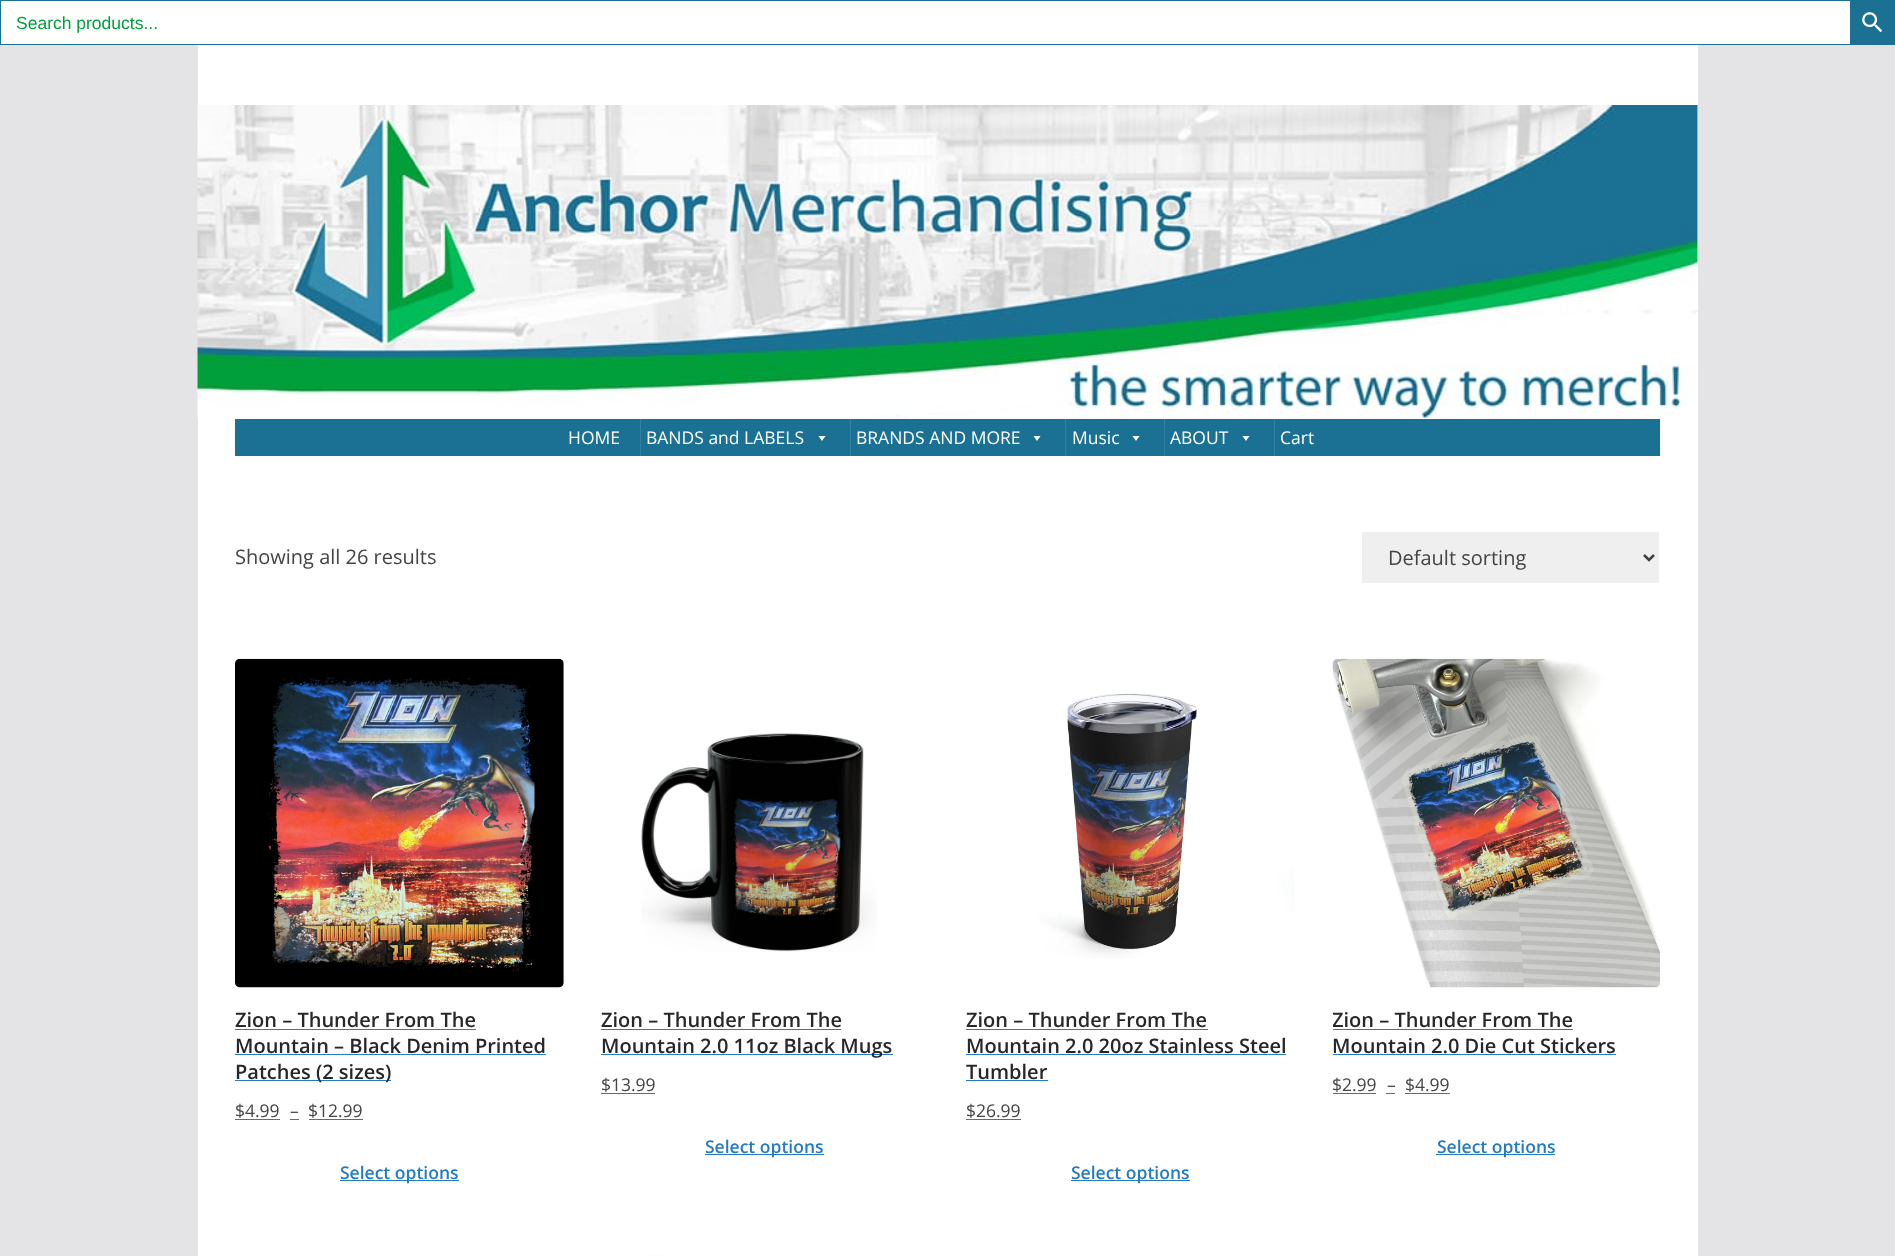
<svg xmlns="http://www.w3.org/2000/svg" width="1895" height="1256">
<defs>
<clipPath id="clip1"><rect x="1333" y="659" width="327" height="539"/></clipPath>
</defs>
<rect width="100%" height="100%" fill="#e4e4e7"/>
<rect x="1" y="1" width="1849" height="43" fill="#fff"/>
<rect width="1850" height="1" fill="#1b7194"/>
<rect y="44" width="1850" height="1" fill="#1b7194"/>
<rect width="1" height="45" fill="#1b7194"/>
<text x="16" y="29" style="font-family:Liberation Sans;font-size:17.5px;fill:#009f3b">Search products...</text>
<rect x="1850" width="45" height="45" fill="#1b7194"/>
<image x="1862" y="12" width="21" height="21" href="media/1.png"/>
<rect x="198" y="45" width="1500" height="1211" fill="#fff"/>
<image x="197" y="105" width="1501" height="313" href="media/2.png"/>
<rect x="235" y="419" width="1425" height="37" fill="#1b7194"/>
<text x="568" y="444" style="font-family:Open Sans;font-size:17.5px;fill:#fff">HOME</text>
<rect x="640" y="419" width="1" height="37" fill="#327f9f"/>
<text x="646" y="444" style="font-family:Open Sans;font-size:17.5px;fill:#fff">BANDS and LABELS</text>
<path d="M825.5 436l-3.5 5l-3.5-5z" fill="#fff"/>
<rect x="850" y="419" width="1" height="37" fill="#327f9f"/>
<text x="856" y="444" style="font-family:Open Sans;font-size:17.5px;fill:#fff">BRANDS AND MORE</text>
<path d="M1040.5 436l-3.5 5l-3.5-5z" fill="#fff"/>
<rect x="1065" y="419" width="1" height="37" fill="#327f9f"/>
<text x="1072" y="444" style="font-family:Open Sans;font-size:17.5px;fill:#fff">Music</text>
<path d="M1139.5 436l-3.5 5l-3.5-5z" fill="#fff"/>
<rect x="1164" y="419" width="1" height="37" fill="#327f9f"/>
<text x="1170" y="444" style="font-family:Open Sans;font-size:17.5px;fill:#fff">ABOUT</text>
<path d="M1249.5 436l-3.5 5l-3.5-5z" fill="#fff"/>
<rect x="1274" y="419" width="1" height="37" fill="#327f9f"/>
<text x="1280" y="444" style="font-family:Open Sans;font-size:17.5px;fill:#fff">Cart</text>
<text x="235" y="564" style="font-family:Open Sans;font-size:20px;fill:#444">Showing all 26 results</text>
<rect x="1362" y="532" width="297" height="51" fill="#efefef"/>
<path d="M1644 555l5 5l5-5" fill="none" stroke="#3f3f46" stroke-width="2.5"/>
<text x="1388" y="565" style="font-family:Open Sans;font-size:20px;fill:#444">Default sorting</text>
<image x="235" y="658" width="329" height="330" href="media/3.png"/>
<text x="235" y="1027" style="font-family:Open Sans;font-size:20px;font-weight:600;fill:#27272a">Zion – Thunder From The</text>
<rect x="235" y="1029" width="241" height="1" fill="#257bc1"/>
<text x="235" y="1053" style="font-family:Open Sans;font-size:20px;font-weight:600;fill:#27272a">Mountain – Black Denim Printed</text>
<rect x="235" y="1054" width="311" height="1" fill="#257bc1"/>
<rect x="235" y="1080" width="156" height="1" fill="#257bc1"/>
<text x="235" y="1079" style="font-family:Open Sans;font-size:20px;font-weight:600;fill:#27272a">Patches (2 sizes)</text>
<text x="235" y="1117" style="font-family:Open Sans;font-size:17.5px;fill:#444">$4.99</text>
<rect x="235" y="1119" width="45" height="1" fill="#257bc1"/>
<text x="290" y="1117" style="font-family:Open Sans;font-size:17.5px;fill:#444">–</text>
<rect x="290" y="1119" width="9" height="1" fill="#257bc1"/>
<text x="308" y="1117" style="font-family:Open Sans;font-size:17.5px;fill:#444">$12.99</text>
<rect x="309" y="1119" width="54" height="1" fill="#257bc1"/>
<rect x="340" y="1180" width="119" height="1" fill="#257bc1"/>
<text x="340" y="1179" style="font-family:Open Sans;font-size:17.5px;font-weight:600;fill:#257bc1">Select options</text>
<image x="641" y="733" width="236" height="219" href="media/4.png"/>
<text x="601" y="1027" style="font-family:Open Sans;font-size:20px;font-weight:600;fill:#27272a">Zion – Thunder From The</text>
<rect x="601" y="1029" width="240" height="1" fill="#257bc1"/>
<rect x="601" y="1054" width="292" height="1" fill="#257bc1"/>
<text x="601" y="1053" style="font-family:Open Sans;font-size:20px;font-weight:600;fill:#27272a">Mountain 2.0 11oz Black Mugs</text>
<text x="601" y="1091" style="font-family:Open Sans;font-size:17.5px;fill:#444">$13.99</text>
<rect x="601" y="1093" width="54" height="1" fill="#257bc1"/>
<rect x="705" y="1154" width="119" height="1" fill="#257bc1"/>
<text x="705" y="1153" style="font-family:Open Sans;font-size:17.5px;font-weight:600;fill:#257bc1">Select options</text>
<image x="1039" y="693" width="256" height="266" href="media/5.png"/>
<text x="966" y="1027" style="font-family:Open Sans;font-size:20px;font-weight:600;fill:#27272a">Zion – Thunder From The</text>
<rect x="966" y="1029" width="242" height="1" fill="#257bc1"/>
<text x="966" y="1053" style="font-family:Open Sans;font-size:20px;font-weight:600;fill:#27272a">Mountain 2.0 20oz Stainless Steel</text>
<rect x="966" y="1054" width="320" height="1" fill="#257bc1"/>
<text x="966" y="1079" style="font-family:Open Sans;font-size:20px;font-weight:600;fill:#27272a">Tumbler</text>
<rect x="966" y="1080" width="82" height="1" fill="#257bc1"/>
<text x="966" y="1117" style="font-family:Open Sans;font-size:17.5px;fill:#444">$26.99</text>
<rect x="966" y="1119" width="55" height="1" fill="#257bc1"/>
<rect x="1071" y="1180" width="119" height="1" fill="#257bc1"/>
<text x="1071" y="1179" style="font-family:Open Sans;font-size:17.5px;font-weight:600;fill:#257bc1">Select options</text>
<image x="1332" y="658" width="328" height="330" href="media/6.png"/>
<g clip-path="url(#clip1)">
<text x="1332" y="1027" style="font-family:Open Sans;font-size:20px;font-weight:600;fill:#27272a">Zion – Thunder From The</text>
</g>
<rect x="1333" y="1029" width="240" height="1" fill="#257bc1"/>
<text x="1332" y="1053" style="font-family:Open Sans;font-size:20px;font-weight:600;fill:#27272a">Mountain 2.0 Die Cut Stickers</text>
<rect x="1333" y="1054" width="283" height="1" fill="#257bc1"/>
<text x="1332" y="1091" style="font-family:Open Sans;font-size:17.5px;fill:#444">$2.99</text>
<rect x="1333" y="1093" width="43" height="1" fill="#257bc1"/>
<text x="1387" y="1091" style="font-family:Open Sans;font-size:17.5px;fill:#444">–</text>
<rect x="1386" y="1093" width="9" height="1" fill="#257bc1"/>
<text x="1405" y="1091" style="font-family:Open Sans;font-size:17.5px;fill:#444">$4.99</text>
<rect x="1405" y="1093" width="45" height="1" fill="#257bc1"/>
<rect x="1436" y="1154" width="119" height="1" fill="#257bc1"/>
<text x="1437" y="1153" style="font-family:Open Sans;font-size:17.5px;font-weight:600;fill:#257bc1">Select options</text>
<rect x="650" y="1255" width="12" height="1" fill="#f9fdfd"/>
</svg>
